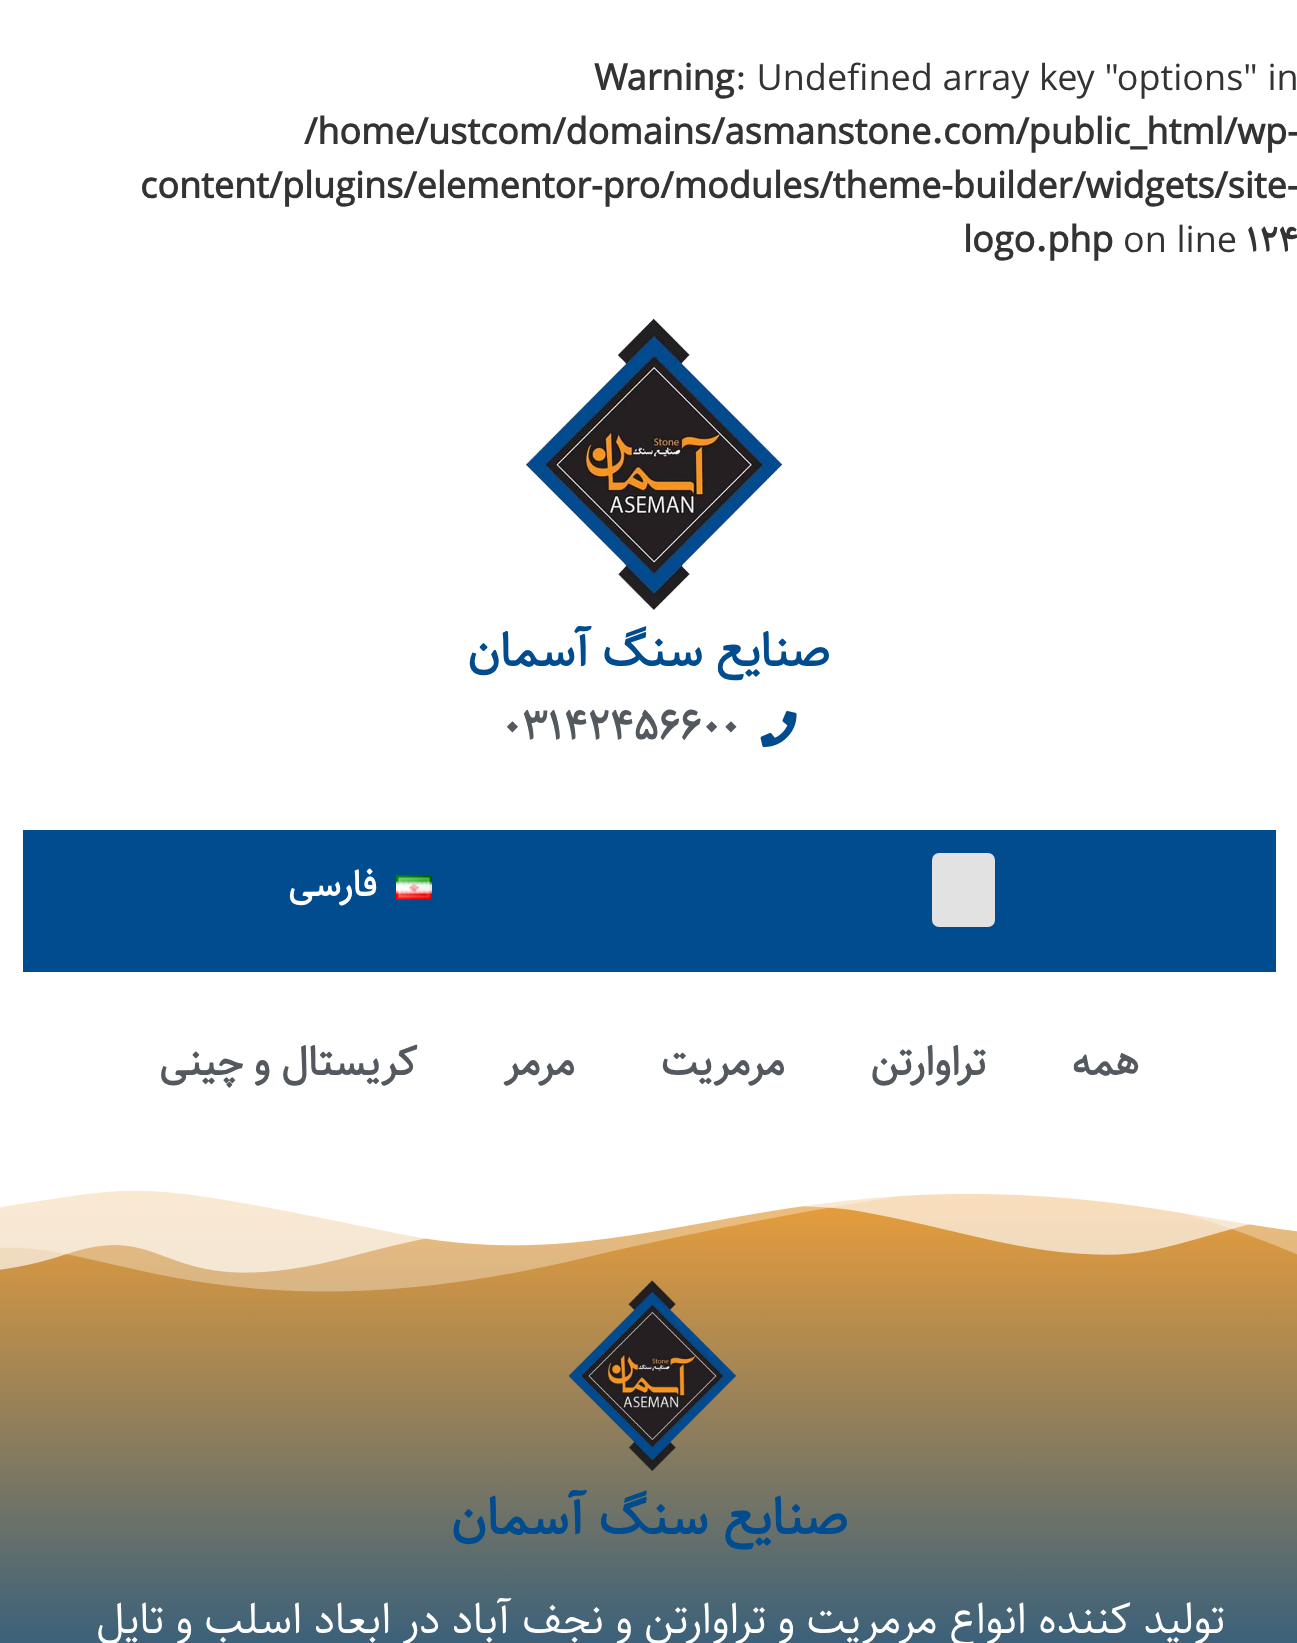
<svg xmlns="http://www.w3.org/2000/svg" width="1297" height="1643">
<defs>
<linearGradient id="g1" gradientUnits="userSpaceOnUse" x1="649" y1="1181" x2="649" y2="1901"><stop offset="0" stop-color="#efa039"/><stop offset="0.85" stop-color="#014c8f"/></linearGradient>
</defs>
<rect width="100%" height="100%" fill="#fff"/>
<text x="594" y="90" style="font-family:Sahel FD;font-size:36px;font-weight:bold;fill:#333">Warning</text>
<text x="735" y="90" style="font-family:Sahel FD;font-size:36px;fill:#333">: Undefined array key "options" in</text>
<text x="304" y="144" style="font-family:Sahel FD;font-size:36px;font-weight:bold;fill:#333">/home/ustcom/domains/asmanstone.com/public_html/wp-</text>
<text x="140" y="198" style="font-family:Sahel FD;font-size:36px;font-weight:bold;fill:#333">content/plugins/elementor-pro/modules/theme-builder/widgets/site-</text>
<text x="963" y="252" style="font-family:Sahel FD;font-size:36px;font-weight:bold;fill:#333">logo.php</text>
<text x="1123" y="252" style="font-family:Sahel FD;font-size:36px;fill:#333">on line</text>
<text x="1246" y="252" style="font-family:Sahel FD;font-size:36px;font-weight:bold;fill:#333">124</text>
<image x="526" y="318" width="257" height="293" href="media/1.png"/>
<text x="830" y="666" style="font-family:Sahel FD;font-size:47.25px;font-weight:bold;direction:rtl;fill:#014c8f">صنایع سنگ آسمان</text>
<text x="502" y="740" style="font-family:Sahel FD;font-size:42.75px;font-weight:bold;fill:#54595f">03142456600</text>
<image x="760" y="711" width="37" height="36" href="media/2.png"/>
<rect x="23" y="830" width="1253" height="142" fill="#014c8f"/>
<text x="377" y="896" style="font-family:Sahel FD;font-size:36px;font-weight:bold;direction:rtl;fill:#fff">فارسی</text>
<image x="396" y="875" width="36" height="25" href="media/3.png"/>
<rect x="932" y="853" width="63" height="74" rx="7" fill="#e2e2e2"/>
<text x="418" y="1075" style="font-family:Sahel FD;font-size:40.5px;font-weight:bold;direction:rtl;fill:#54595f">کریستال و چینی</text>
<text x="575" y="1075" style="font-family:Sahel FD;font-size:40.5px;font-weight:bold;direction:rtl;fill:#54595f">مرمر</text>
<text x="785" y="1075" style="font-family:Sahel FD;font-size:40.5px;font-weight:bold;direction:rtl;fill:#54595f">مرمریت</text>
<text x="986" y="1075" style="font-family:Sahel FD;font-size:40.5px;font-weight:bold;direction:rtl;fill:#54595f">تراوارتن</text>
<text x="1139" y="1075" style="font-family:Sahel FD;font-size:40.5px;font-weight:bold;direction:rtl;fill:#54595f">همه</text>
<rect y="1190" width="1297" height="453" fill="url(#g1)"/>
<image x="0" y="1181" width="1297" height="111" href="media/4.png"/>
<image x="568" y="1280" width="169" height="191" href="media/5.png"/>
<text x="848" y="1534" style="font-family:Sahel FD;font-size:51.75px;font-weight:bold;direction:rtl;fill:#014c8f">صنایع سنگ آسمان</text>
<text x="1225" y="1633" style="font-family:Sahel FD;font-size:42.75px;direction:rtl;fill:#fff">تولید کننده انواع مرمریت و تراوارتن و نجف آباد در ابعاد اسلب و تایل</text>
</svg>
